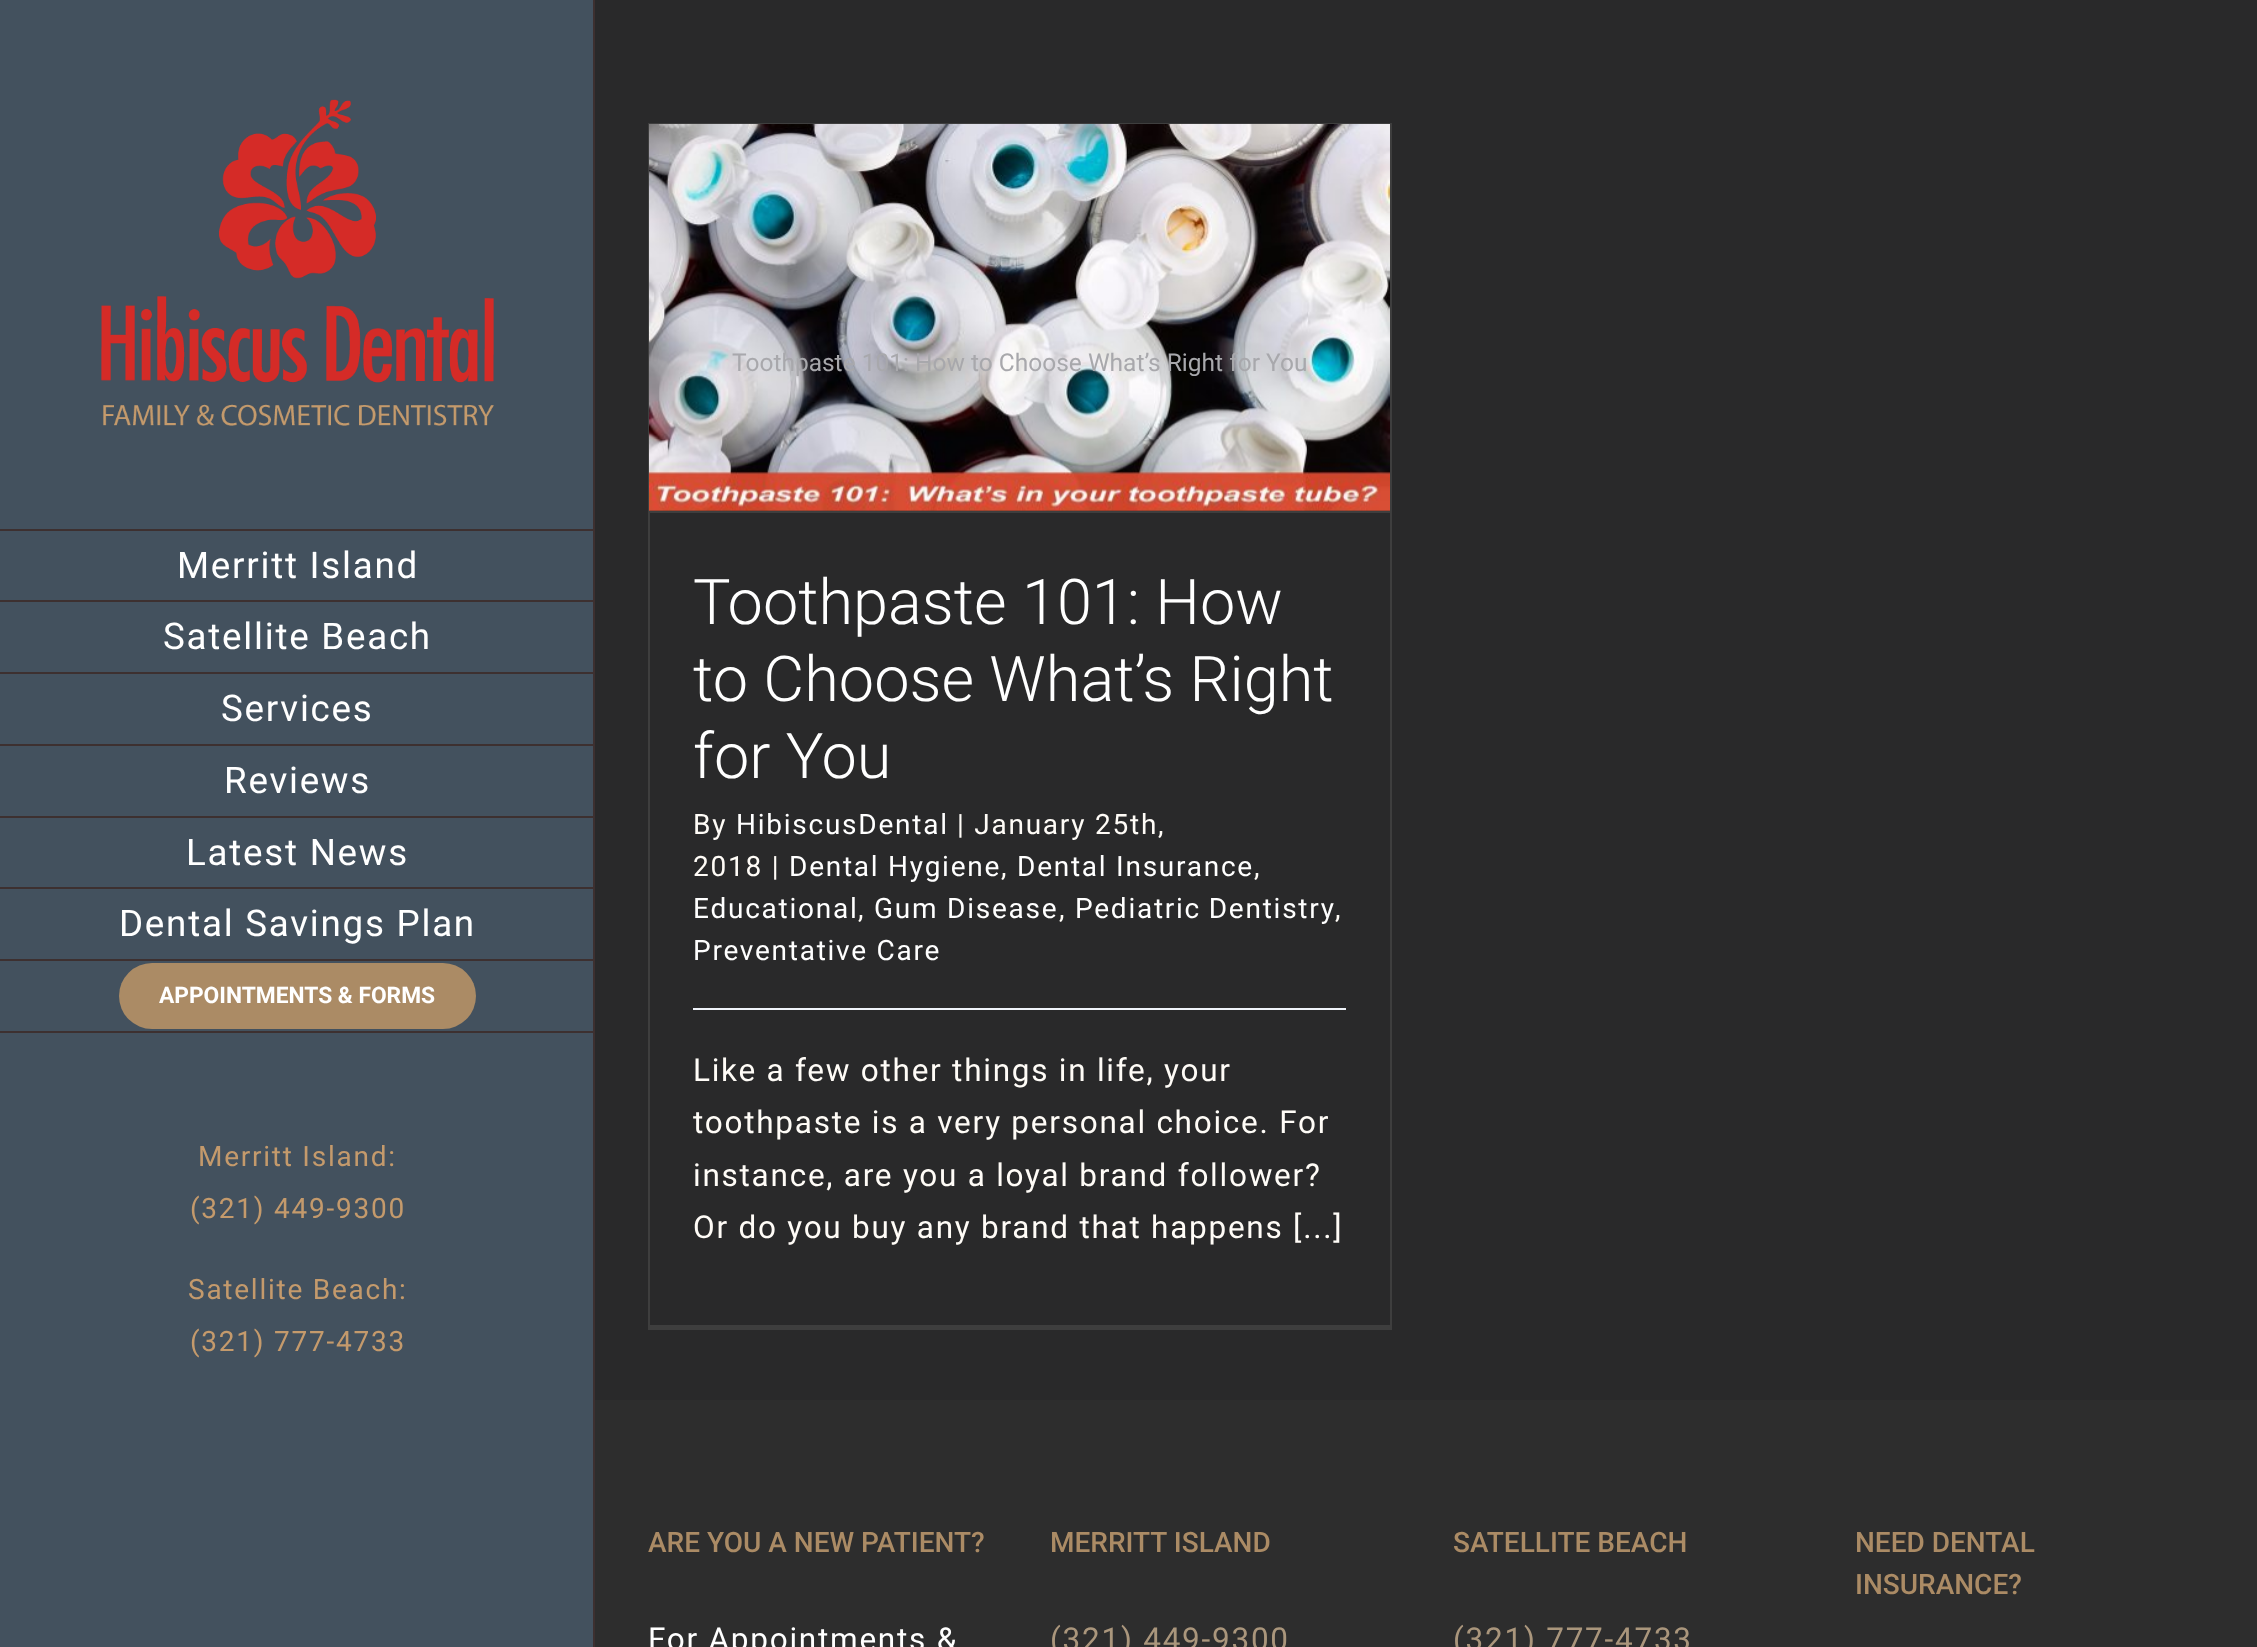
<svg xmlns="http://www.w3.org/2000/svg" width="2257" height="1647">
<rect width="100%" height="100%" fill="#29292a"/>
<rect width="593" height="1647" fill="#43515e"/>
<rect x="593" width="2" height="1647" fill="#3d3030"/>
<image x="101" y="99" width="393" height="327" href="media/1.png"/>
<rect y="529" width="595" height="2" fill="#3d3030"/>
<rect y="600" width="595" height="2" fill="#3d3030"/>
<text x="177" y="578" style="font-family:Roboto;font-size:36.75px;letter-spacing:1.75px;fill:#fff">Merritt Island</text>
<rect y="672" width="595" height="2" fill="#3d3030"/>
<text x="163" y="649" style="font-family:Roboto;font-size:36.75px;letter-spacing:1.75px;fill:#fff">Satellite Beach</text>
<rect y="744" width="595" height="2" fill="#3d3030"/>
<text x="221" y="721" style="font-family:Roboto;font-size:36.75px;letter-spacing:1.75px;fill:#fff">Services</text>
<rect y="816" width="595" height="2" fill="#3d3030"/>
<text x="224" y="793" style="font-family:Roboto;font-size:36.75px;letter-spacing:1.75px;fill:#fff">Reviews</text>
<rect y="887" width="595" height="2" fill="#3d3030"/>
<text x="186" y="865" style="font-family:Roboto;font-size:36.75px;letter-spacing:1.75px;fill:#fff">Latest News</text>
<rect y="959" width="595" height="2" fill="#3d3030"/>
<text x="119" y="936" style="font-family:Roboto;font-size:36.75px;letter-spacing:1.75px;fill:#fff">Dental Savings Plan</text>
<rect y="1031" width="595" height="2" fill="#3d3030"/>
<rect x="119" y="963" width="357" height="66" rx="33" fill="#ab8b65"/>
<text x="159" y="1003" style="font-family:Roboto;font-size:22.75px;font-weight:bold;fill:#fff">APPOINTMENTS &amp; FORMS</text>
<text x="198" y="1166" style="font-family:Roboto;font-size:28px;letter-spacing:1.75px;fill:#c49a6c">Merritt Island:</text>
<text x="190" y="1218" style="font-family:Roboto;font-size:28px;letter-spacing:1.75px;fill:#c49a6c">(321) 449-9300</text>
<text x="188" y="1299" style="font-family:Roboto;font-size:28px;letter-spacing:1.75px;fill:#c49a6c">Satellite Beach:</text>
<text x="190" y="1351" style="font-family:Roboto;font-size:28px;letter-spacing:1.75px;fill:#c49a6c">(321) 777-4733</text>
<rect x="648" y="123" width="743" height="1" fill="#3e3e3e"/>
<rect x="1390" y="123" width="2" height="1207" fill="#3e3e3e"/>
<rect x="648" y="1325" width="743" height="5" fill="#3e3e3e"/>
<rect x="648" y="123" width="2" height="1207" fill="#3e3e3e"/>
<rect x="649" y="511" width="741" height="2" fill="#3e3e3e"/>
<image x="649" y="124" width="741" height="387" href="media/2.png"/>
<text x="732" y="371" style="font-family:Roboto;font-size:24.5px;fill:#a8a8ac">Toothpaste 101: How to Choose What’s Right for You</text>
<text x="693" y="624" style="font-family:Roboto;font-size:63px;font-weight:300;fill:#fff">Toothpaste 101: How</text>
<text x="693" y="701" style="font-family:Roboto;font-size:63px;font-weight:300;fill:#fff">to Choose What’s Right</text>
<text x="693" y="778" style="font-family:Roboto;font-size:63px;font-weight:300;fill:#fff">for You</text>
<text x="693" y="834" style="font-family:Roboto;font-size:28px;letter-spacing:1.75px;fill:#fffcf7">By</text>
<text x="736" y="834" style="font-family:Roboto;font-size:28px;letter-spacing:1.75px;fill:#fff">HibiscusDental</text>
<text x="957" y="834" style="font-family:Roboto;font-size:28px;letter-spacing:1.75px;fill:#fffcf7">| January 25th,</text>
<text x="693" y="876" style="font-family:Roboto;font-size:28px;letter-spacing:1.75px;fill:#fffcf7">2018 |</text>
<text x="789" y="876" style="font-family:Roboto;font-size:28px;letter-spacing:1.75px;fill:#fff">Dental Hygiene</text>
<text x="1001" y="876" style="font-family:Roboto;font-size:28px;letter-spacing:1.75px;fill:#fffcf7">,</text>
<text x="1017" y="876" style="font-family:Roboto;font-size:28px;letter-spacing:1.75px;fill:#fff">Dental Insurance</text>
<text x="1254" y="876" style="font-family:Roboto;font-size:28px;letter-spacing:1.75px;fill:#fffcf7">,</text>
<text x="693" y="918" style="font-family:Roboto;font-size:28px;letter-spacing:1.75px;fill:#fff">Educational</text>
<text x="858" y="918" style="font-family:Roboto;font-size:28px;letter-spacing:1.75px;fill:#fffcf7">,</text>
<text x="874" y="918" style="font-family:Roboto;font-size:28px;letter-spacing:1.75px;fill:#fff">Gum Disease</text>
<text x="1059" y="918" style="font-family:Roboto;font-size:28px;letter-spacing:1.75px;fill:#fffcf7">,</text>
<text x="1075" y="918" word-spacing="-1" style="font-family:Roboto;font-size:28px;letter-spacing:1.75px;fill:#fff">Pediatric Dentistry</text>
<text x="1335" y="918" style="font-family:Roboto;font-size:28px;letter-spacing:1.75px;fill:#fffcf7">,</text>
<text x="693" y="960" style="font-family:Roboto;font-size:28px;letter-spacing:1.75px;fill:#fff">Preventative Care</text>
<rect x="693" y="1008" width="653" height="2" fill="#eff3f9"/>
<text x="693" y="1081" style="font-family:Roboto;font-size:31.5px;letter-spacing:1.75px;fill:#fffcf7">Like a few other things in life, your</text>
<text x="693" y="1133" style="font-family:Roboto;font-size:31.5px;letter-spacing:1.75px;fill:#fffcf7">toothpaste is a very personal choice. For</text>
<text x="693" y="1186" style="font-family:Roboto;font-size:31.5px;letter-spacing:1.75px;fill:#fffcf7">instance, are you a loyal brand follower?</text>
<text x="693" y="1238" style="font-family:Roboto;font-size:31.5px;letter-spacing:1.75px;fill:#fffcf7">Or do you buy any brand that happens [...]</text>
<rect x="595" y="1400" width="1662" height="247" fill="#2d2d2d"/>
<text x="648" y="1552" style="font-family:Roboto;font-size:28px;font-weight:500;fill:#ab8b65">ARE YOU A NEW PATIENT?</text>
<text x="648" y="1650" style="font-family:Roboto;font-size:31.5px;letter-spacing:1.75px;fill:#fff">For Appointments &amp;</text>
<text x="1050" y="1552" style="font-family:Roboto;font-size:28px;font-weight:500;fill:#ab8b65">MERRITT ISLAND</text>
<text x="1050" y="1650" style="font-family:Roboto;font-size:31.5px;letter-spacing:1.75px;fill:#aa967c">(321) 449-9300</text>
<text x="1453" y="1552" style="font-family:Roboto;font-size:28px;font-weight:500;fill:#ab8b65">SATELLITE BEACH</text>
<text x="1453" y="1650" style="font-family:Roboto;font-size:31.5px;letter-spacing:1.75px;fill:#aa967c">(321) 777-4733</text>
<text x="1855" y="1552" style="font-family:Roboto;font-size:28px;font-weight:500;fill:#ab8b65">NEED DENTAL</text>
<text x="1855" y="1594" style="font-family:Roboto;font-size:28px;font-weight:500;fill:#ab8b65">INSURANCE?</text>
</svg>
